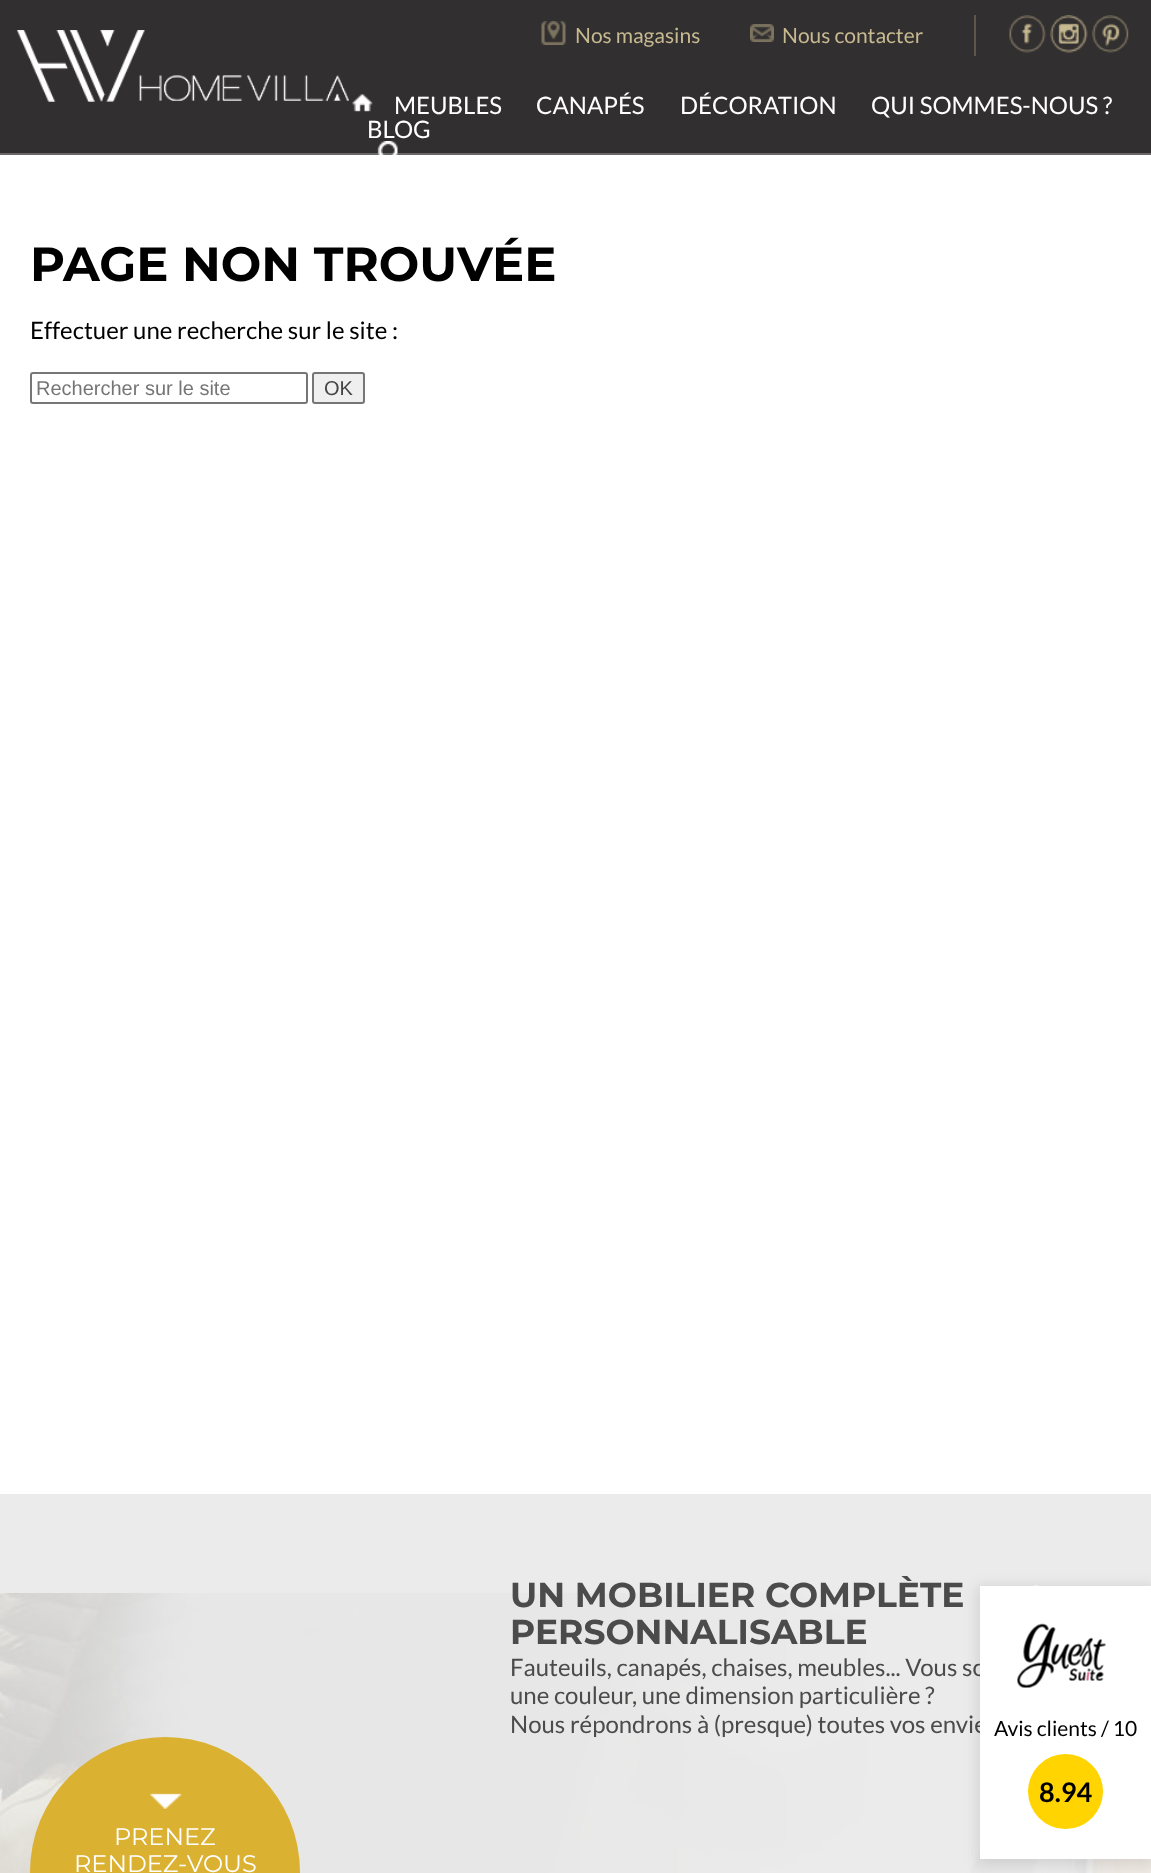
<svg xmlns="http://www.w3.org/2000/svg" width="1151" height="1873">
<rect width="100%" height="100%" fill="#fff"/>
<rect width="1151" height="153" fill="#322f30"/>
<rect y="153" width="1151" height="2" fill="#686666"/>
<image x="16" y="30" width="333" height="72" href="media/1.png"/>
<image x="541" y="21" width="25" height="24" href="media/2.png"/>
<text x="575" y="43" style="font-family:Lato;font-size:21px;fill:#c7b990">Nos magasins</text>
<image x="750" y="24" width="24" height="18" href="media/3.png"/>
<text x="782" y="43" style="font-family:Lato;font-size:21px;fill:#c7b990">Nous contacter</text>
<rect x="974" y="15" width="2" height="41" fill="#5d574b"/>
<image x="1009" y="15" width="37" height="38" href="media/4.png"/>
<image x="1050" y="15" width="38" height="38" href="media/5.png"/>
<image x="1092" y="15" width="37" height="38" href="media/6.png"/>
<image x="352" y="94" width="21" height="18" href="media/7.png"/>
<text x="394" y="114" style="font-family:Lato;font-size:24px;fill:#fff">MEUBLES</text>
<text x="536" y="114" style="font-family:Lato;font-size:24px;fill:#fff">CANAPÉS</text>
<text x="680" y="114" style="font-family:Lato;font-size:24px;fill:#fff">DÉCORATION</text>
<text x="871" y="114" style="font-family:Lato;font-size:24px;fill:#fff">QUI SOMMES-NOUS ?</text>
<text x="367" y="138" style="font-family:Lato;font-size:24px;fill:#fff">BLOG</text>
<image x="377" y="141" width="21" height="14" href="media/8.png"/>
<text x="30" y="281" style="font-family:Montserrat;font-size:48px;font-weight:bold;fill:#000">PAGE NON TROUVÉE</text>
<text x="30" y="339" style="font-family:Lato;font-size:24px;fill:#000">Effectuer une recherche sur le site :</text>
<rect x="31" y="373" width="276" height="30" rx="2" fill="none" stroke="#767676" stroke-width="2"/>
<text x="36" y="395" style="font-family:Liberation Sans;font-size:20px;fill:#757575">Rechercher sur le site</text>
<rect x="313" y="373" width="51" height="30" rx="2" fill="#efefef" stroke="#767676" stroke-width="2"/>
<text x="324" y="395" style="font-family:Liberation Sans;font-size:20px;fill:#444">OK</text>
<rect y="1494" width="1151" height="99" fill="#ebebeb"/>
<image x="0" y="1593" width="1151" height="280" href="media/9.png"/>
<text x="510" y="1607" style="font-family:Montserrat;font-size:34.5px;font-weight:bold;fill:#4c4b4b">UN MOBILIER COMPLÈTE</text>
<text x="510" y="1644" style="font-family:Montserrat;font-size:34.5px;font-weight:bold;fill:#4c4b4b">PERSONNALISABLE</text>
<text x="510" y="1676" style="font-family:Lato;font-size:24px;fill:#4c4b4b">Fauteuils, canapés, chaises, meubles... Vous so</text>
<text x="510" y="1704" style="font-family:Lato;font-size:24px;fill:#4c4b4b">une couleur, une dimension particulière ?</text>
<text x="510" y="1733" style="font-family:Lato;font-size:24px;fill:#4c4b4b">Nous répondrons à (presque) toutes vos envie</text>
<circle cx="165" cy="1872" r="135" fill="#dbb132"/>
<image x="150" y="1793" width="32" height="16" href="media/10.png"/>
<text x="114" y="1845" style="font-family:Montserrat;font-size:24px;fill:#fff">PRENEZ</text>
<text x="74" y="1872" style="font-family:Montserrat;font-size:24px;fill:#fff">RENDEZ-VOUS</text>
<rect x="977" y="1586" width="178" height="279" fill="#0000001a" filter="blur(7px)"/>
<rect x="980" y="1586" width="171" height="273" fill="#fff"/>
<image x="1017" y="1585" width="89" height="103" href="media/11.png"/>
<text x="994" y="1736" style="font-family:Lato;font-size:21px;fill:#000">Avis clients / 10</text>
<circle cx="1065.5" cy="1791.5" r="37.5" fill="#ffd400"/>
<text x="1039" y="1802" style="font-family:Lato;font-size:27px;font-weight:bold;fill:#000">8.94</text>
</svg>
